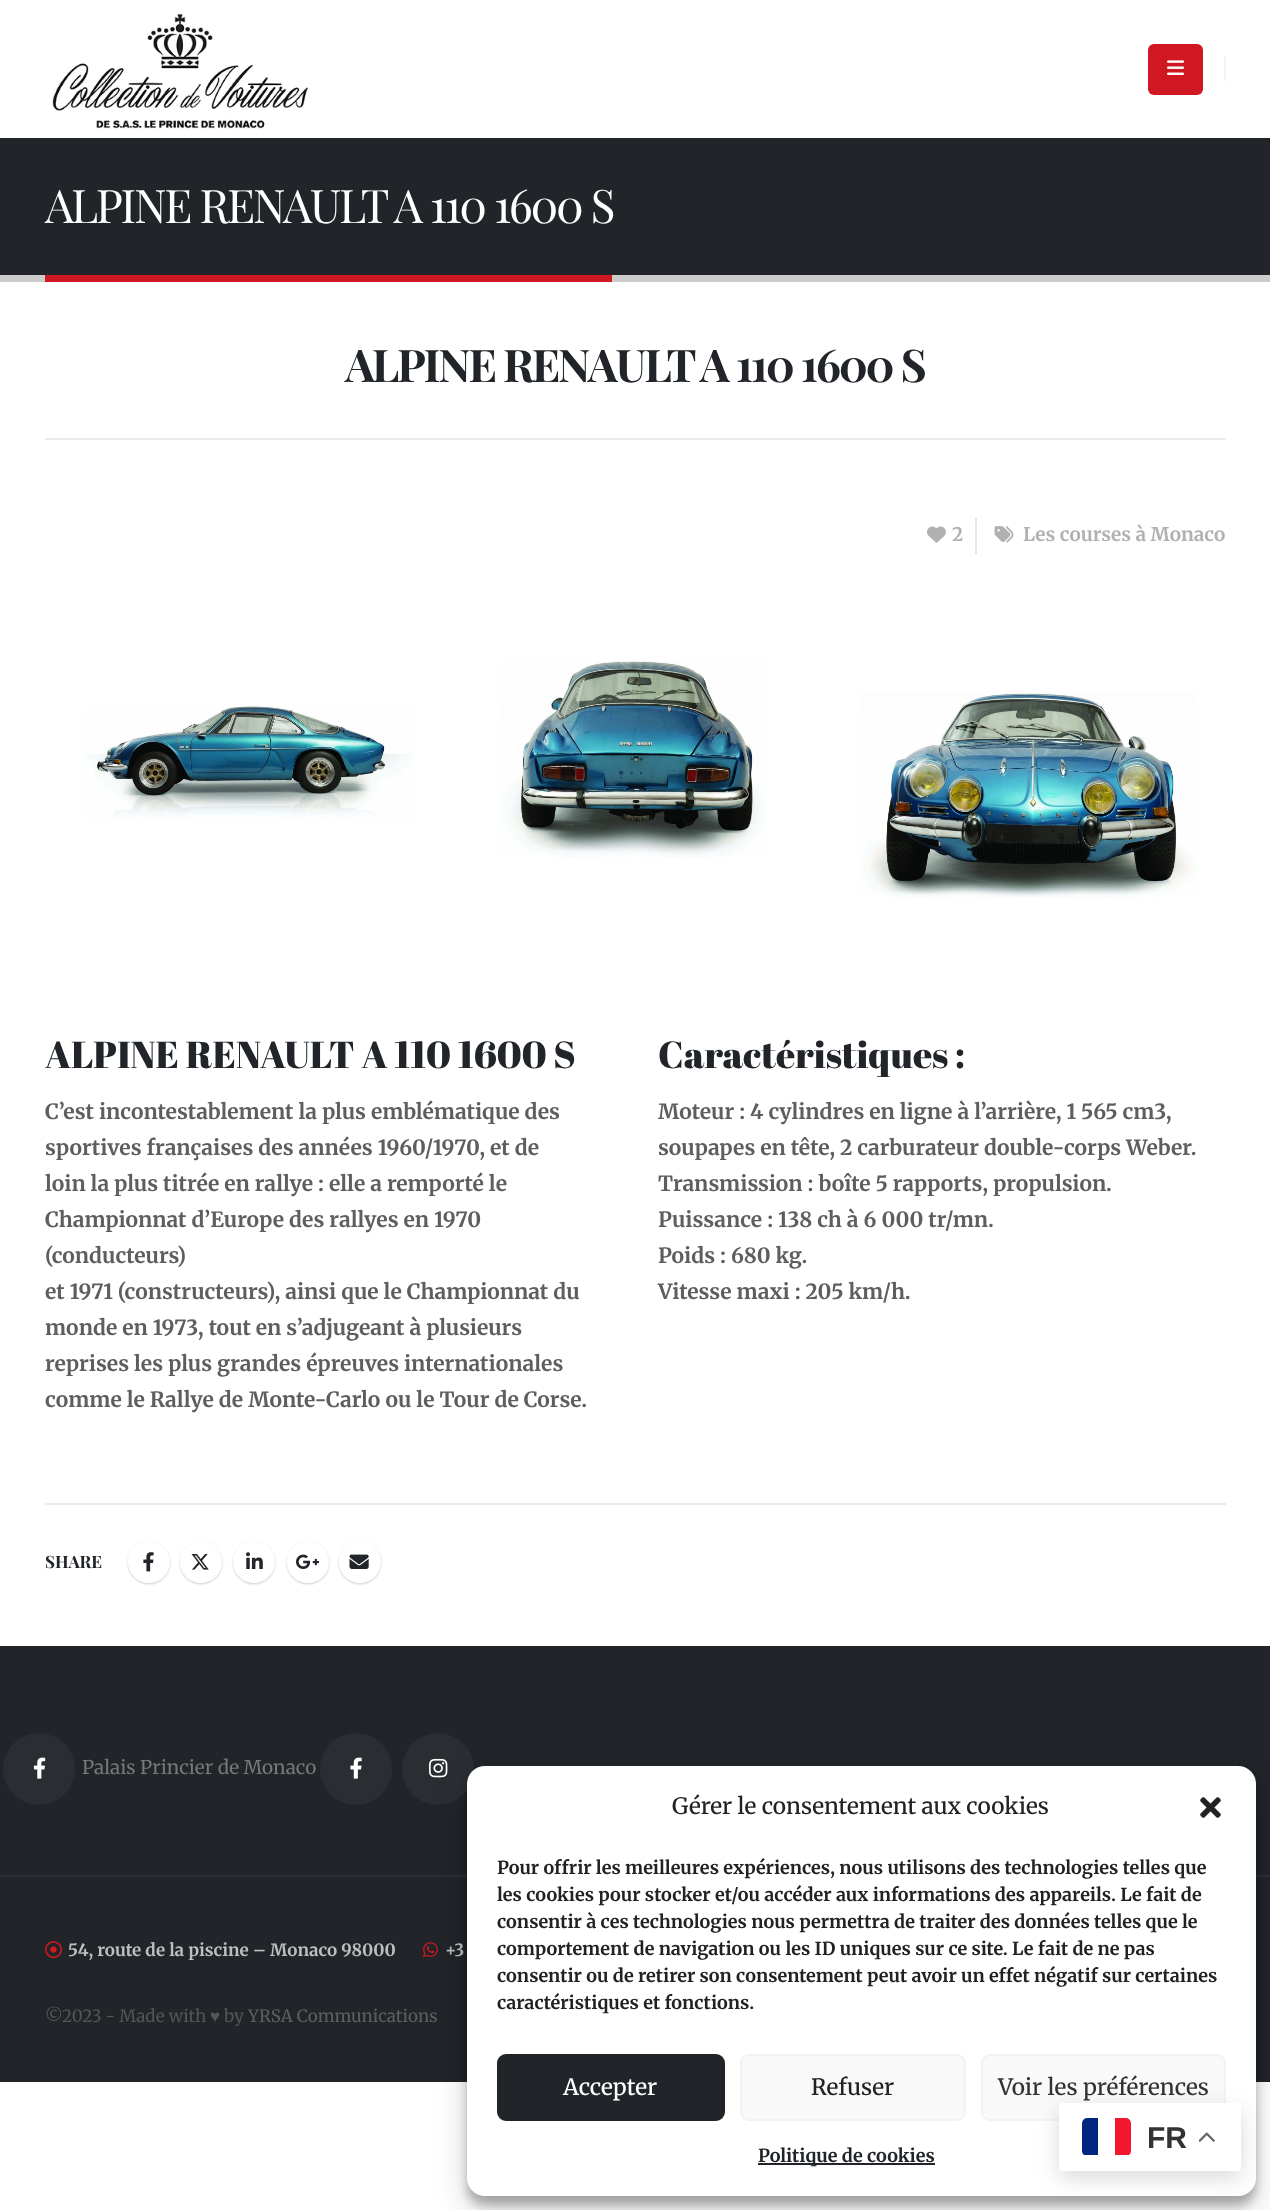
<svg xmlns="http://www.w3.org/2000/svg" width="1270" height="2210">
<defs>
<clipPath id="clip1"><path d="M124 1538h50v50h-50zm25 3c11.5 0 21 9.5 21 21c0 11.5-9.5 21-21 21c-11.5 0-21-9.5-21-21c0-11.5 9.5-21 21-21z" clip-rule="evenodd"/></clipPath>
<clipPath id="clip2"><path d="M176 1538h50v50h-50zm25 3c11.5 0 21 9.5 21 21c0 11.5-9.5 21-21 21c-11.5 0-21-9.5-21-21c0-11.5 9.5-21 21-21z" clip-rule="evenodd"/></clipPath>
<clipPath id="clip3"><path d="M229 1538h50v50h-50zm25 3c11.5 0 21 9.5 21 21c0 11.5-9.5 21-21 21c-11.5 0-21-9.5-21-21c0-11.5 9.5-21 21-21z" clip-rule="evenodd"/></clipPath>
<clipPath id="clip4"><path d="M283 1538h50v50h-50zm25 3c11.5 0 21 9.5 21 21c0 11.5-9.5 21-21 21c-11.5 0-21-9.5-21-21c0-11.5 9.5-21 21-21z" clip-rule="evenodd"/></clipPath>
<clipPath id="clip5"><path d="M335 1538h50v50h-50zm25 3c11.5 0 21 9.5 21 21c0 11.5-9.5 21-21 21c-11.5 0-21-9.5-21-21c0-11.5 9.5-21 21-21z" clip-rule="evenodd"/></clipPath>
<clipPath id="clip6"><rect x="1082" y="2118" width="49" height="38" rx="5"/></clipPath>
</defs>
<rect width="100%" height="100%" fill="#fff"/>
<image x="52" y="13" width="256" height="116" href="media/1.png"/>
<rect x="1148" y="44" width="55" height="51" rx="6" fill="#cf1821"/>
<image x="1167" y="60" width="17" height="15" href="media/2.png"/>
<rect x="1224" y="56" width="2" height="25" fill="#f5f5f5"/>
<rect y="138" width="1270" height="137" fill="#212529"/>
<rect y="275" width="1270" height="7" fill="#ccc"/>
<text x="45" y="223" style="font-family:Playfair Display;font-size:46.25px;letter-spacing:-2.3px;fill:#fff">ALPINE RENAULT A 110 1600 S</text>
<rect x="45" y="275" width="567" height="7" fill="#cf1821"/>
<text x="345" y="382" style="font-family:Playfair Display;font-size:45px;font-weight:bold;letter-spacing:-2.25px;fill:#212529">ALPINE RENAULT A 110 1600 S</text>
<rect x="45" y="438" width="1181" height="2" fill="#ebebeb"/>
<rect x="975" y="518" width="2" height="36" fill="#e7e7e7"/>
<image x="927" y="526" width="19" height="17" href="media/3.png"/>
<text x="952" y="541" style="font-family:Merriweather;font-size:18.9px;font-weight:bold;fill:#b1b1b1">2</text>
<image x="994" y="526" width="20" height="17" href="media/4.png"/>
<text x="1023" y="541" style="font-family:Merriweather;font-size:18.9px;font-weight:bold;fill:#b1b1b1">Les courses à Monaco</text>
<image x="85" y="706" width="330" height="113" href="media/5.png"/>
<image x="501" y="661" width="265" height="197" href="media/6.png"/>
<image x="860" y="692" width="338" height="206" href="media/7.png"/>
<text x="45" y="1068" style="font-family:Abril Fatface;font-size:37.5px;fill:#212529">ALPINE RENAULT A 110 1600 S</text>
<text x="45" y="1119" style="font-family:Merriweather;font-size:21px;font-weight:bold;fill:#5e5e5e">C’est incontestablement la plus emblématique des</text>
<text x="45" y="1155" style="font-family:Merriweather;font-size:21px;font-weight:bold;fill:#5e5e5e">sportives françaises des années 1960/1970, et de</text>
<text x="45" y="1191" style="font-family:Merriweather;font-size:21px;font-weight:bold;fill:#5e5e5e">loin la plus titrée en rallye : elle a remporté le</text>
<text x="45" y="1227" style="font-family:Merriweather;font-size:21px;font-weight:bold;fill:#5e5e5e">Championnat d’Europe des rallyes en 1970</text>
<text x="45" y="1263" style="font-family:Merriweather;font-size:21px;font-weight:bold;fill:#5e5e5e">(conducteurs)</text>
<text x="45" y="1299" style="font-family:Merriweather;font-size:21px;font-weight:bold;fill:#5e5e5e">et 1971 (constructeurs), ainsi que le Championnat du</text>
<text x="45" y="1335" style="font-family:Merriweather;font-size:21px;font-weight:bold;fill:#5e5e5e">monde en 1973, tout en s’adjugeant à plusieurs</text>
<text x="45" y="1371" style="font-family:Merriweather;font-size:21px;font-weight:bold;fill:#5e5e5e">reprises les plus grandes épreuves internationales</text>
<text x="45" y="1407" style="font-family:Merriweather;font-size:21px;font-weight:bold;fill:#5e5e5e">comme le Rallye de Monte-Carlo ou le Tour de Corse.</text>
<text x="658" y="1068" style="font-family:Abril Fatface;font-size:37.5px;fill:#212529">Caractéristiques :</text>
<text x="658" y="1119" style="font-family:Merriweather;font-size:21px;font-weight:bold;fill:#5e5e5e">Moteur : 4 cylindres en ligne à l’arrière, 1 565 cm3,</text>
<text x="658" y="1155" style="font-family:Merriweather;font-size:21px;font-weight:bold;fill:#5e5e5e">soupapes en tête, 2 carburateur double-corps Weber.</text>
<text x="658" y="1191" style="font-family:Merriweather;font-size:21px;font-weight:bold;fill:#5e5e5e">Transmission : boîte 5 rapports, propulsion.</text>
<text x="658" y="1227" style="font-family:Merriweather;font-size:21px;font-weight:bold;fill:#5e5e5e">Puissance : 138 ch à 6 000 tr/mn.</text>
<text x="658" y="1263" style="font-family:Merriweather;font-size:21px;font-weight:bold;fill:#5e5e5e">Poids : 680 kg.</text>
<text x="658" y="1299" style="font-family:Merriweather;font-size:21px;font-weight:bold;fill:#5e5e5e">Vitesse maxi : 205 km/h.</text>
<rect x="45" y="1503" width="1181" height="2" fill="#ebebeb"/>
<text x="45" y="1568" style="font-family:Playfair Display;font-size:17px;font-weight:bold;fill:#212529">SHARE</text>
<g clip-path="url(#clip1)">
<rect x="128" y="1542" width="42" height="42" rx="21" fill="#00000033" filter="blur(1px)"/>
</g>
<image x="143" y="1552" width="11" height="20" href="media/8.png"/>
<g clip-path="url(#clip2)">
<rect x="180" y="1542" width="42" height="42" rx="21" fill="#00000033" filter="blur(1px)"/>
</g>
<image x="191" y="1554" width="18" height="16" href="media/9.png"/>
<g clip-path="url(#clip3)">
<rect x="233" y="1542" width="42" height="42" rx="21" fill="#00000033" filter="blur(1px)"/>
</g>
<image x="246" y="1552" width="17" height="17" href="media/10.png"/>
<g clip-path="url(#clip4)">
<rect x="287" y="1542" width="42" height="42" rx="21" fill="#00000033" filter="blur(1px)"/>
</g>
<image x="296" y="1554" width="23" height="15" href="media/11.png"/>
<g clip-path="url(#clip5)">
<rect x="339" y="1542" width="42" height="42" rx="21" fill="#00000033" filter="blur(1px)"/>
</g>
<image x="349" y="1554" width="20" height="15" href="media/12.png"/>
<rect y="1646" width="1270" height="436" fill="#212529"/>
<circle cx="39" cy="1769" r="36" fill="#2a2e32"/>
<image x="33" y="1757" width="13" height="22" href="media/13.png"/>
<text x="82" y="1774" style="font-family:Merriweather;font-size:18.9px;fill:#777">Palais Princier de Monaco</text>
<circle cx="356" cy="1769" r="36" fill="#2a2e32"/>
<image x="350" y="1757" width="12" height="22" href="media/14.png"/>
<circle cx="438" cy="1769" r="36" fill="#2a2e32"/>
<image x="429" y="1758" width="19" height="20" href="media/15.png"/>
<rect y="1875" width="1270" height="2" fill="#2c3034"/>
<image x="45" y="1941" width="17" height="18" href="media/16.png"/>
<text x="68" y="1956" style="font-family:Merriweather;font-size:17px;font-weight:bold;fill:#bcbebf">54, route de la piscine – Monaco 98000</text>
<image x="423" y="1942" width="15" height="15" href="media/17.png"/>
<text x="445" y="1956" style="font-family:Merriweather;font-size:17px;font-weight:bold;fill:#bcbebf">+3</text>
<text x="45" y="2022" style="font-family:Merriweather;font-size:17px;fill:#555">©2023 - Made with</text>
<text x="210" y="2022" style="font-family:Liberation Sans;font-size:17px;fill:#555">♥</text>
<text x="224" y="2022" style="font-family:Merriweather;font-size:17px;fill:#555">by</text>
<text x="248" y="2022" style="font-family:Merriweather;font-size:17px;fill:#5e5e5e">YRSA Communications</text>
<rect x="467" y="1775" width="789" height="430" rx="18" fill="#0000003b" filter="blur(4.5px)"/>
<rect x="467" y="1781" width="789" height="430" rx="18" fill="#00000030" filter="blur(15px)"/>
<rect x="467" y="1766" width="789" height="430" rx="18" fill="#fff"/>
<text x="672" y="1814" style="font-family:Merriweather;font-size:22.5px;font-weight:500;fill:#222">Gérer le consentement aux cookies</text>
<image x="1200" y="1797" width="21" height="21" href="media/18.png"/>
<text x="497" y="1874" style="font-family:Merriweather;font-size:18px;font-weight:bold;fill:#222">Pour offrir les meilleures expériences, nous utilisons des technologies telles que</text>
<text x="497" y="1901" style="font-family:Merriweather;font-size:18px;font-weight:bold;fill:#222">les cookies pour stocker et/ou accéder aux informations des appareils. Le fait de</text>
<text x="497" y="1928" style="font-family:Merriweather;font-size:18px;font-weight:bold;fill:#222">consentir à ces technologies nous permettra de traiter des données telles que le</text>
<text x="497" y="1955" style="font-family:Merriweather;font-size:18px;font-weight:bold;fill:#222">comportement de navigation ou les ID uniques sur ce site. Le fait de ne pas</text>
<text x="497" y="1982" style="font-family:Merriweather;font-size:18px;font-weight:bold;fill:#222">consentir ou de retirer son consentement peut avoir un effet négatif sur certaines</text>
<text x="497" y="2009" style="font-family:Merriweather;font-size:18px;font-weight:bold;fill:#222">caractéristiques et fonctions.</text>
<rect x="498" y="2055" width="226" height="65" rx="8" fill="#212529" stroke="#212529" stroke-width="2"/>
<text x="563" y="2095" style="font-family:Merriweather;font-size:22.5px;font-weight:500;fill:#fff">Accepter</text>
<rect x="741" y="2055" width="224" height="65" rx="8" fill="#f9f9f9" stroke="#f2f2f2" stroke-width="2"/>
<text x="811" y="2095" style="font-family:Merriweather;font-size:22.5px;font-weight:500;fill:#222">Refuser</text>
<rect x="982" y="2055" width="243" height="65" rx="8" fill="#f9f9f9" stroke="#f2f2f2" stroke-width="2"/>
<text x="998" y="2095" style="font-family:Merriweather;font-size:22.5px;font-weight:500;fill:#333">Voir les préférences</text>
<rect x="758" y="2163" width="177" height="2" fill="#212529"/>
<text x="758" y="2162" style="font-family:Merriweather;font-size:18px;font-weight:bold;fill:#212529">Politique de cookies</text>
<rect x="1059" y="2111" width="182" height="67" rx="3" fill="#00000026" filter="blur(11px)"/>
<rect x="1059" y="2103" width="182" height="68" rx="3" fill="#fff"/>
<g clip-path="url(#clip6)">
<path d="M1087 2118h11v37h-16v-32c0-3 2-5 5-5z" fill="#00267f"/>
<path d="M1115 2118h11c3 0 5 2 5 5v32h-16z" fill="#f31830"/>
</g>
<text x="1147" y="2148" style="font-family:Liberation Sans;font-size:30px;font-weight:bold;fill:#333">FR</text>
<image x="1199" y="2132" width="16" height="10" href="media/19.png"/>
</svg>
